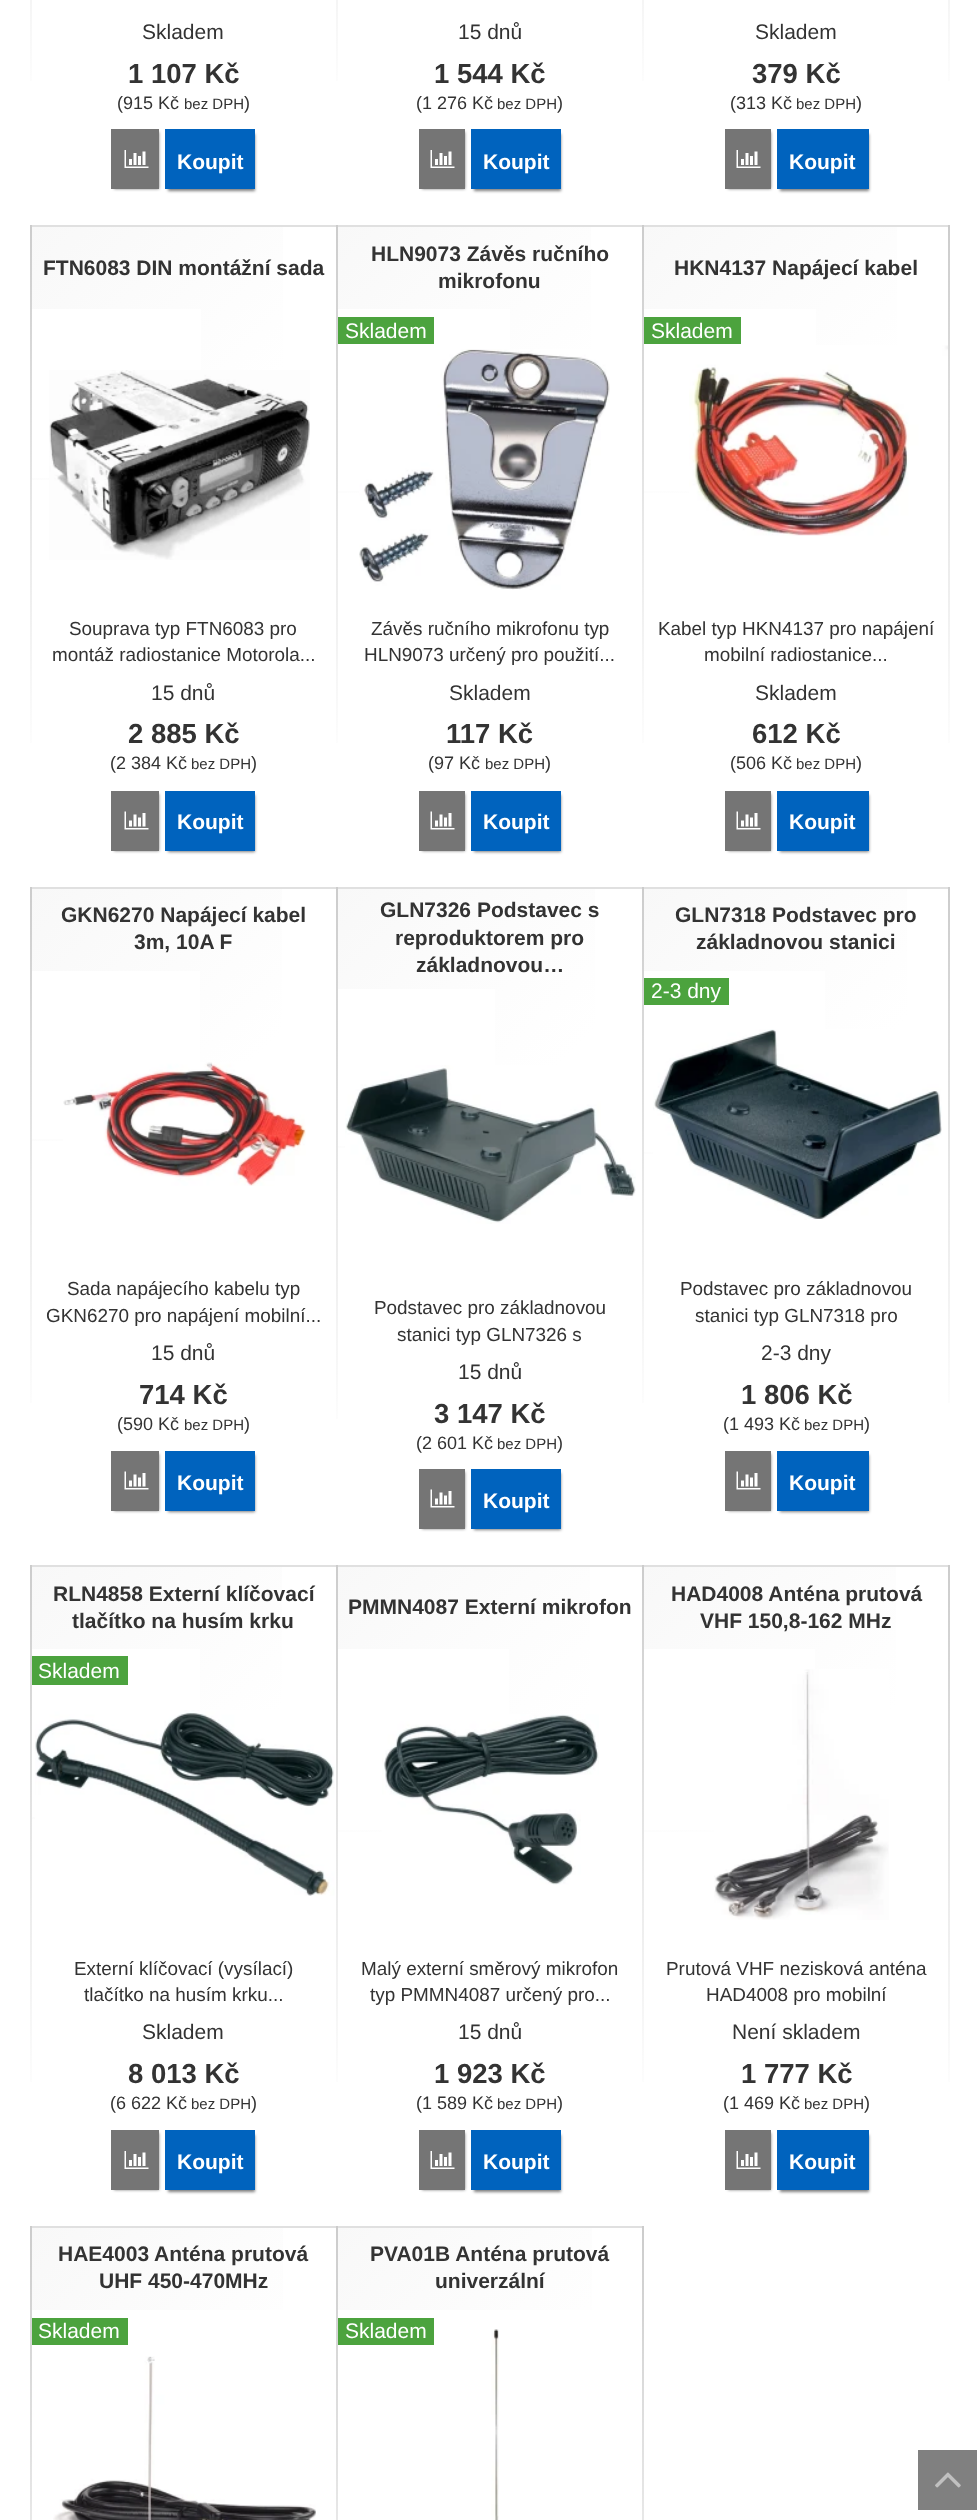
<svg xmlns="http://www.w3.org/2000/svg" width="977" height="2520">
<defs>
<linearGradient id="g1" gradientUnits="userSpaceOnUse" x1="31" y1="-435" x2="31" y2="108"><stop offset="0" stop-color="#ccc"/><stop offset="1" stop-color="#fff"/></linearGradient>
<linearGradient id="g2" gradientUnits="userSpaceOnUse" x1="337" y1="-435" x2="337" y2="108"><stop offset="0" stop-color="#ccc"/><stop offset="1" stop-color="#fff"/></linearGradient>
<linearGradient id="g3" gradientUnits="userSpaceOnUse" x1="949" y1="-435" x2="949" y2="108"><stop offset="0" stop-color="#ccc"/><stop offset="1" stop-color="#fff"/></linearGradient>
<linearGradient id="g4" gradientUnits="userSpaceOnUse" x1="643" y1="-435" x2="643" y2="108"><stop offset="0" stop-color="#ccc"/><stop offset="1" stop-color="#fff"/></linearGradient>
<linearGradient id="g5" gradientUnits="userSpaceOnUse" x1="-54" y1="309" x2="420" y2="782"><stop offset="0" stop-color="#f8f8f8"/><stop offset="0.42" stop-color="#fff"/><stop offset="0.5" stop-color="#fff"/></linearGradient>
<linearGradient id="g6" gradientUnits="userSpaceOnUse" x1="31" y1="225" x2="31" y2="770"><stop offset="0" stop-color="#ccc"/><stop offset="1" stop-color="#fff"/></linearGradient>
<linearGradient id="g7" gradientUnits="userSpaceOnUse" x1="252" y1="309" x2="726" y2="782"><stop offset="0" stop-color="#f8f8f8"/><stop offset="0.42" stop-color="#fff" stop-opacity="0.84"/><stop offset="0.5" stop-color="#fff"/></linearGradient>
<linearGradient id="g8" gradientUnits="userSpaceOnUse" x1="337" y1="225" x2="337" y2="770"><stop offset="0" stop-color="#ccc"/><stop offset="1" stop-color="#fff"/></linearGradient>
<linearGradient id="g9" gradientUnits="userSpaceOnUse" x1="558" y1="309" x2="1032" y2="782"><stop offset="0" stop-color="#f8f8f8"/><stop offset="0.42" stop-color="#fff" stop-opacity="0.84"/><stop offset="0.5" stop-color="#fff"/></linearGradient>
<linearGradient id="g10" gradientUnits="userSpaceOnUse" x1="949" y1="225" x2="949" y2="770"><stop offset="0" stop-color="#ccc"/><stop offset="1" stop-color="#fff"/></linearGradient>
<linearGradient id="g11" gradientUnits="userSpaceOnUse" x1="643" y1="225" x2="643" y2="770"><stop offset="0" stop-color="#ccc"/><stop offset="1" stop-color="#fff"/></linearGradient>
<linearGradient id="g12" gradientUnits="userSpaceOnUse" x1="-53" y1="970" x2="419" y2="1442"><stop offset="0" stop-color="#f8f8f8"/><stop offset="0.42" stop-color="#fff"/><stop offset="0.5" stop-color="#fff"/></linearGradient>
<linearGradient id="g13" gradientUnits="userSpaceOnUse" x1="31" y1="887" x2="31" y2="1430"><stop offset="0" stop-color="#ccc"/><stop offset="1" stop-color="#fff"/></linearGradient>
<linearGradient id="g14" gradientUnits="userSpaceOnUse" x1="248" y1="974" x2="730" y2="1456"><stop offset="0" stop-color="#f8f8f8"/><stop offset="0.42" stop-color="#fff" stop-opacity="0.84"/><stop offset="0.5" stop-color="#fff"/></linearGradient>
<linearGradient id="g15" gradientUnits="userSpaceOnUse" x1="337" y1="887" x2="337" y2="1446"><stop offset="0" stop-color="#ccc"/><stop offset="1" stop-color="#fff"/></linearGradient>
<linearGradient id="g16" gradientUnits="userSpaceOnUse" x1="559" y1="970" x2="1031" y2="1442"><stop offset="0" stop-color="#f8f8f8"/><stop offset="0.42" stop-color="#fff" stop-opacity="0.84"/><stop offset="0.5" stop-color="#fff"/></linearGradient>
<linearGradient id="g17" gradientUnits="userSpaceOnUse" x1="949" y1="887" x2="949" y2="1430"><stop offset="0" stop-color="#ccc"/><stop offset="1" stop-color="#fff"/></linearGradient>
<linearGradient id="g18" gradientUnits="userSpaceOnUse" x1="643" y1="887" x2="643" y2="1430"><stop offset="0" stop-color="#ccc"/><stop offset="1" stop-color="#fff"/></linearGradient>
<linearGradient id="g19" gradientUnits="userSpaceOnUse" x1="-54" y1="1648" x2="420" y2="2121"><stop offset="0" stop-color="#f8f8f8"/><stop offset="0.42" stop-color="#fff"/><stop offset="0.5" stop-color="#fff"/></linearGradient>
<linearGradient id="g20" gradientUnits="userSpaceOnUse" x1="31" y1="1565" x2="31" y2="2109"><stop offset="0" stop-color="#ccc"/><stop offset="1" stop-color="#fff"/></linearGradient>
<linearGradient id="g21" gradientUnits="userSpaceOnUse" x1="252" y1="1648" x2="726" y2="2121"><stop offset="0" stop-color="#f8f8f8"/><stop offset="0.42" stop-color="#fff" stop-opacity="0.84"/><stop offset="0.5" stop-color="#fff"/></linearGradient>
<linearGradient id="g22" gradientUnits="userSpaceOnUse" x1="337" y1="1565" x2="337" y2="2109"><stop offset="0" stop-color="#ccc"/><stop offset="1" stop-color="#fff"/></linearGradient>
<linearGradient id="g23" gradientUnits="userSpaceOnUse" x1="558" y1="1648" x2="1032" y2="2121"><stop offset="0" stop-color="#f8f8f8"/><stop offset="0.42" stop-color="#fff" stop-opacity="0.84"/><stop offset="0.5" stop-color="#fff"/></linearGradient>
<linearGradient id="g24" gradientUnits="userSpaceOnUse" x1="949" y1="1565" x2="949" y2="2109"><stop offset="0" stop-color="#ccc"/><stop offset="1" stop-color="#fff"/></linearGradient>
<linearGradient id="g25" gradientUnits="userSpaceOnUse" x1="643" y1="1565" x2="643" y2="2109"><stop offset="0" stop-color="#ccc"/><stop offset="1" stop-color="#fff"/></linearGradient>
<linearGradient id="g26" gradientUnits="userSpaceOnUse" x1="-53" y1="2309" x2="419" y2="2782"><stop offset="0" stop-color="#f8f8f8"/><stop offset="0.42" stop-color="#fff"/><stop offset="0.5" stop-color="#fff"/></linearGradient>
<linearGradient id="g27" gradientUnits="userSpaceOnUse" x1="31" y1="2226" x2="31" y2="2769"><stop offset="0" stop-color="#ccc"/><stop offset="1" stop-color="#fff"/></linearGradient>
<linearGradient id="g28" gradientUnits="userSpaceOnUse" x1="253" y1="2309" x2="725" y2="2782"><stop offset="0" stop-color="#f8f8f8"/><stop offset="0.42" stop-color="#fff" stop-opacity="0.84"/><stop offset="0.5" stop-color="#fff"/></linearGradient>
<linearGradient id="g29" gradientUnits="userSpaceOnUse" x1="643" y1="2226" x2="643" y2="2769"><stop offset="0" stop-color="#ccc"/><stop offset="1" stop-color="#fff"/></linearGradient>
<linearGradient id="g30" gradientUnits="userSpaceOnUse" x1="337" y1="2226" x2="337" y2="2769"><stop offset="0" stop-color="#ccc"/><stop offset="1" stop-color="#fff"/></linearGradient>
</defs>
<rect width="100%" height="100%" fill="#fff"/>
<rect x="30" width="2" height="81" fill="url(#g1)"/>
<text x="142" y="39" style="font-family:Liberation Sans;font-size:21px;fill:#333">Skladem</text>
<text x="128" y="83" style="font-family:Liberation Sans;font-size:27.5px;font-weight:bold;fill:#333">1 107 Kč</text>
<text x="117" y="109" style="font-family:Liberation Sans;font-size:18px;fill:#333">(915 Kč</text>
<text x="184" y="109" style="font-family:Liberation Sans;font-size:15px;fill:#333">bez DPH</text>
<text x="244" y="109" style="font-family:Liberation Sans;font-size:18px;fill:#333">)</text>
<rect x="114" y="132" width="45" height="57" fill="#00000080" filter="blur(1.5px)"/>
<rect x="111" y="129" width="48" height="60" fill="#757575"/>
<image x="124" y="150" width="25" height="18" href="media/1.png"/>
<rect x="168" y="134" width="87" height="57" fill="#00000080" filter="blur(1.5px)"/>
<rect x="165" y="129" width="90" height="60" fill="#0063be"/>
<text x="177" y="169" style="font-family:Liberation Sans;font-size:21px;font-weight:bold;fill:#fff">Koupit</text>
<rect x="336" width="2" height="81" fill="url(#g2)"/>
<text x="458" y="39" style="font-family:Liberation Sans;font-size:21px;fill:#333">15 dnů</text>
<text x="434" y="83" style="font-family:Liberation Sans;font-size:27.5px;font-weight:bold;fill:#333">1 544 Kč</text>
<text x="416" y="109" style="font-family:Liberation Sans;font-size:18px;fill:#333">(1 276 Kč</text>
<text x="497" y="109" style="font-family:Liberation Sans;font-size:15px;fill:#333">bez DPH</text>
<text x="557" y="109" style="font-family:Liberation Sans;font-size:18px;fill:#333">)</text>
<rect x="422" y="132" width="43" height="57" fill="#00000080" filter="blur(1.5px)"/>
<rect x="419" y="129" width="46" height="60" fill="#757575"/>
<image x="430" y="150" width="25" height="18" href="media/1.png"/>
<rect x="474" y="134" width="87" height="57" fill="#00000080" filter="blur(1.5px)"/>
<rect x="471" y="129" width="90" height="60" fill="#0063be"/>
<text x="483" y="169" style="font-family:Liberation Sans;font-size:21px;font-weight:bold;fill:#fff">Koupit</text>
<rect x="948" width="2" height="81" fill="url(#g3)"/>
<rect x="642" width="2" height="81" fill="url(#g4)"/>
<text x="755" y="39" style="font-family:Liberation Sans;font-size:21px;fill:#333">Skladem</text>
<text x="752" y="83" style="font-family:Liberation Sans;font-size:27.5px;font-weight:bold;fill:#333">379 Kč</text>
<text x="730" y="109" style="font-family:Liberation Sans;font-size:18px;fill:#333">(313 Kč</text>
<text x="796" y="109" style="font-family:Liberation Sans;font-size:15px;fill:#333">bez DPH</text>
<text x="856" y="109" style="font-family:Liberation Sans;font-size:18px;fill:#333">)</text>
<rect x="728" y="132" width="43" height="57" fill="#00000080" filter="blur(1.5px)"/>
<rect x="725" y="129" width="46" height="60" fill="#757575"/>
<image x="736" y="150" width="25" height="18" href="media/1.png"/>
<rect x="780" y="134" width="89" height="57" fill="#00000080" filter="blur(1.5px)"/>
<rect x="777" y="129" width="92" height="60" fill="#0063be"/>
<text x="789" y="169" style="font-family:Liberation Sans;font-size:21px;font-weight:bold;fill:#fff">Koupit</text>
<rect x="30" y="227" width="253" height="253" fill="url(#g5)"/>
<rect x="30" y="225" width="2" height="518" fill="url(#g6)"/>
<rect x="32" y="225" width="304" height="2" fill="#e0e0e0"/>
<text x="43" y="275" style="font-family:Liberation Sans;font-size:21px;font-weight:bold;fill:#333">FTN6083 DIN montážní sada</text>
<rect x="32" y="309" width="169" height="169" fill="#fff"/>
<image x="49" y="370" width="261" height="190" href="media/2.png"/>
<text x="69" y="635" style="font-family:Liberation Sans;font-size:18.9px;fill:#333">Souprava typ FTN6083 pro</text>
<text x="52" y="661" style="font-family:Liberation Sans;font-size:18.9px;fill:#333">montáž radiostanice Motorola...</text>
<text x="151" y="700" style="font-family:Liberation Sans;font-size:21px;fill:#333">15 dnů</text>
<text x="128" y="743" style="font-family:Liberation Sans;font-size:27.5px;font-weight:bold;fill:#333">2 885 Kč</text>
<text x="110" y="769" style="font-family:Liberation Sans;font-size:18px;fill:#333">(2 384 Kč</text>
<text x="191" y="769" style="font-family:Liberation Sans;font-size:15px;fill:#333">bez DPH</text>
<text x="251" y="769" style="font-family:Liberation Sans;font-size:18px;fill:#333">)</text>
<rect x="114" y="794" width="45" height="57" fill="#00000080" filter="blur(1.5px)"/>
<rect x="111" y="791" width="48" height="60" fill="#757575"/>
<image x="124" y="811" width="25" height="19" href="media/3.png"/>
<rect x="168" y="795" width="87" height="57" fill="#00000080" filter="blur(1.5px)"/>
<rect x="165" y="791" width="90" height="60" fill="#0063be"/>
<text x="177" y="829" style="font-family:Liberation Sans;font-size:21px;font-weight:bold;fill:#fff">Koupit</text>
<rect x="336" y="227" width="255" height="266" fill="url(#g7)"/>
<rect x="336" y="225" width="2" height="518" fill="url(#g8)"/>
<rect x="338" y="225" width="304" height="2" fill="#e0e0e0"/>
<text x="371" y="261" style="font-family:Liberation Sans;font-size:21px;font-weight:bold;fill:#333">HLN9073 Závěs ručního</text>
<text x="438" y="288" style="font-family:Liberation Sans;font-size:21px;font-weight:bold;fill:#333">mikrofonu</text>
<rect x="338" y="309" width="172" height="182" fill="#fff"/>
<rect x="338" y="317" width="96" height="27" fill="#4ca33e"/>
<text x="345" y="338" style="font-family:Liberation Sans;font-size:21px;fill:#fff">Skladem</text>
<image x="359" y="349" width="251" height="241" href="media/4.png"/>
<text x="371" y="635" style="font-family:Liberation Sans;font-size:18.9px;fill:#333">Závěs ručního mikrofonu typ</text>
<text x="364" y="661" style="font-family:Liberation Sans;font-size:18.9px;fill:#333">HLN9073 určený pro použití...</text>
<text x="449" y="700" style="font-family:Liberation Sans;font-size:21px;fill:#333">Skladem</text>
<text x="446" y="743" style="font-family:Liberation Sans;font-size:27.5px;font-weight:bold;fill:#333">117 Kč</text>
<text x="428" y="769" style="font-family:Liberation Sans;font-size:18px;fill:#333">(97 Kč</text>
<text x="485" y="769" style="font-family:Liberation Sans;font-size:15px;fill:#333">bez DPH</text>
<text x="545" y="769" style="font-family:Liberation Sans;font-size:18px;fill:#333">)</text>
<rect x="422" y="794" width="43" height="57" fill="#00000080" filter="blur(1.5px)"/>
<rect x="419" y="791" width="46" height="60" fill="#757575"/>
<image x="430" y="811" width="25" height="19" href="media/3.png"/>
<rect x="474" y="795" width="87" height="57" fill="#00000080" filter="blur(1.5px)"/>
<rect x="471" y="791" width="90" height="60" fill="#0063be"/>
<text x="483" y="829" style="font-family:Liberation Sans;font-size:21px;font-weight:bold;fill:#fff">Koupit</text>
<rect x="642" y="227" width="255" height="266" fill="url(#g9)"/>
<rect x="948" y="225" width="2" height="518" fill="url(#g10)"/>
<rect x="642" y="225" width="2" height="518" fill="url(#g11)"/>
<rect x="644" y="225" width="304" height="2" fill="#e0e0e0"/>
<text x="674" y="275" style="font-family:Liberation Sans;font-size:21px;font-weight:bold;fill:#333">HKN4137 Napájecí kabel</text>
<rect x="644" y="309" width="172" height="182" fill="#fff"/>
<rect x="644" y="317" width="97" height="27" fill="#4ca33e"/>
<text x="651" y="338" style="font-family:Liberation Sans;font-size:21px;fill:#fff">Skladem</text>
<image x="689" y="345" width="259" height="191" href="media/5.png"/>
<text x="658" y="635" style="font-family:Liberation Sans;font-size:18.9px;fill:#333">Kabel typ HKN4137 pro napájení</text>
<text x="704" y="661" style="font-family:Liberation Sans;font-size:18.9px;fill:#333">mobilní radiostanice...</text>
<text x="755" y="700" style="font-family:Liberation Sans;font-size:21px;fill:#333">Skladem</text>
<text x="752" y="743" style="font-family:Liberation Sans;font-size:27.5px;font-weight:bold;fill:#333">612 Kč</text>
<text x="730" y="769" style="font-family:Liberation Sans;font-size:18px;fill:#333">(506 Kč</text>
<text x="796" y="769" style="font-family:Liberation Sans;font-size:15px;fill:#333">bez DPH</text>
<text x="856" y="769" style="font-family:Liberation Sans;font-size:18px;fill:#333">)</text>
<rect x="728" y="794" width="43" height="57" fill="#00000080" filter="blur(1.5px)"/>
<rect x="725" y="791" width="46" height="60" fill="#757575"/>
<image x="736" y="811" width="25" height="19" href="media/3.png"/>
<rect x="780" y="795" width="89" height="57" fill="#00000080" filter="blur(1.5px)"/>
<rect x="777" y="791" width="92" height="60" fill="#0063be"/>
<text x="789" y="829" style="font-family:Liberation Sans;font-size:21px;font-weight:bold;fill:#fff">Koupit</text>
<rect x="30" y="889" width="252" height="252" fill="url(#g12)"/>
<rect x="30" y="887" width="2" height="516" fill="url(#g13)"/>
<rect x="32" y="887" width="304" height="2" fill="#e0e0e0"/>
<text x="61" y="922" style="font-family:Liberation Sans;font-size:21px;font-weight:bold;fill:#333">GKN6270 Napájecí kabel</text>
<text x="134" y="949" style="font-family:Liberation Sans;font-size:21px;font-weight:bold;fill:#333">3m, 10A F</text>
<rect x="32" y="971" width="168" height="168" fill="#fff"/>
<image x="63" y="1062" width="243" height="124" href="media/6.png"/>
<text x="67" y="1295" style="font-family:Liberation Sans;font-size:18.9px;fill:#333">Sada napájecího kabelu typ</text>
<text x="46" y="1322" style="font-family:Liberation Sans;font-size:18.9px;fill:#333">GKN6270 pro napájení mobilní...</text>
<text x="151" y="1360" style="font-family:Liberation Sans;font-size:21px;fill:#333">15 dnů</text>
<text x="139" y="1404" style="font-family:Liberation Sans;font-size:27.5px;font-weight:bold;fill:#333">714 Kč</text>
<text x="117" y="1430" style="font-family:Liberation Sans;font-size:18px;fill:#333">(590 Kč</text>
<text x="184" y="1430" style="font-family:Liberation Sans;font-size:15px;fill:#333">bez DPH</text>
<text x="244" y="1430" style="font-family:Liberation Sans;font-size:18px;fill:#333">)</text>
<rect x="114" y="1454" width="45" height="57" fill="#00000080" filter="blur(1.5px)"/>
<rect x="111" y="1451" width="48" height="60" fill="#757575"/>
<image x="124" y="1471" width="25" height="19" href="media/3.png"/>
<rect x="168" y="1455" width="87" height="57" fill="#00000080" filter="blur(1.5px)"/>
<rect x="165" y="1451" width="90" height="60" fill="#0063be"/>
<text x="177" y="1490" style="font-family:Liberation Sans;font-size:21px;font-weight:bold;fill:#fff">Koupit</text>
<rect x="336" y="889" width="259" height="259" fill="url(#g14)"/>
<rect x="336" y="887" width="2" height="532" fill="url(#g15)"/>
<rect x="338" y="887" width="304" height="2" fill="#e0e0e0"/>
<text x="380" y="917" style="font-family:Liberation Sans;font-size:21px;font-weight:bold;fill:#333">GLN7326 Podstavec s</text>
<text x="395" y="945" style="font-family:Liberation Sans;font-size:21px;font-weight:bold;fill:#333">reproduktorem pro</text>
<text x="416" y="972" style="font-family:Liberation Sans;font-size:21px;font-weight:bold;fill:#333">základnovou…</text>
<rect x="338" y="989" width="157" height="157" fill="#fff"/>
<image x="345" y="1065" width="291" height="159" href="media/7.png"/>
<text x="374" y="1314" style="font-family:Liberation Sans;font-size:18.9px;fill:#333">Podstavec pro základnovou</text>
<text x="397" y="1341" style="font-family:Liberation Sans;font-size:18.9px;fill:#333">stanici typ GLN7326 s</text>
<text x="458" y="1379" style="font-family:Liberation Sans;font-size:21px;fill:#333">15 dnů</text>
<text x="434" y="1423" style="font-family:Liberation Sans;font-size:27.5px;font-weight:bold;fill:#333">3 147 Kč</text>
<text x="416" y="1449" style="font-family:Liberation Sans;font-size:18px;fill:#333">(2 601 Kč</text>
<text x="497" y="1449" style="font-family:Liberation Sans;font-size:15px;fill:#333">bez DPH</text>
<text x="557" y="1449" style="font-family:Liberation Sans;font-size:18px;fill:#333">)</text>
<rect x="422" y="1472" width="43" height="57" fill="#00000080" filter="blur(1.5px)"/>
<rect x="419" y="1469" width="46" height="60" fill="#757575"/>
<image x="430" y="1489" width="25" height="19" href="media/3.png"/>
<rect x="474" y="1473" width="87" height="57" fill="#00000080" filter="blur(1.5px)"/>
<rect x="471" y="1469" width="90" height="60" fill="#0063be"/>
<text x="483" y="1508" style="font-family:Liberation Sans;font-size:21px;font-weight:bold;fill:#fff">Koupit</text>
<rect x="642" y="889" width="265" height="265" fill="url(#g16)"/>
<rect x="948" y="887" width="2" height="516" fill="url(#g17)"/>
<rect x="642" y="887" width="2" height="516" fill="url(#g18)"/>
<rect x="644" y="887" width="304" height="2" fill="#e0e0e0"/>
<text x="675" y="922" style="font-family:Liberation Sans;font-size:21px;font-weight:bold;fill:#333">GLN7318 Podstavec pro</text>
<text x="696" y="949" style="font-family:Liberation Sans;font-size:21px;font-weight:bold;fill:#333">základnovou stanici</text>
<rect x="644" y="971" width="181" height="181" fill="#fff"/>
<rect x="644" y="978" width="85" height="27" fill="#4ca33e"/>
<text x="651" y="998" style="font-family:Liberation Sans;font-size:21px;fill:#fff">2-3 dny</text>
<image x="653" y="1029" width="289" height="191" href="media/8.png"/>
<text x="680" y="1295" style="font-family:Liberation Sans;font-size:18.9px;fill:#333">Podstavec pro základnovou</text>
<text x="695" y="1322" style="font-family:Liberation Sans;font-size:18.9px;fill:#333">stanici typ GLN7318 pro</text>
<text x="761" y="1360" style="font-family:Liberation Sans;font-size:21px;fill:#333">2-3 dny</text>
<text x="741" y="1404" style="font-family:Liberation Sans;font-size:27.5px;font-weight:bold;fill:#333">1 806 Kč</text>
<text x="723" y="1430" style="font-family:Liberation Sans;font-size:18px;fill:#333">(1 493 Kč</text>
<text x="804" y="1430" style="font-family:Liberation Sans;font-size:15px;fill:#333">bez DPH</text>
<text x="864" y="1430" style="font-family:Liberation Sans;font-size:18px;fill:#333">)</text>
<rect x="728" y="1454" width="43" height="57" fill="#00000080" filter="blur(1.5px)"/>
<rect x="725" y="1451" width="46" height="60" fill="#757575"/>
<image x="736" y="1471" width="25" height="19" href="media/3.png"/>
<rect x="780" y="1455" width="89" height="57" fill="#00000080" filter="blur(1.5px)"/>
<rect x="777" y="1451" width="92" height="60" fill="#0063be"/>
<text x="789" y="1490" style="font-family:Liberation Sans;font-size:21px;font-weight:bold;fill:#fff">Koupit</text>
<rect x="30" y="1567" width="252" height="252" fill="url(#g19)"/>
<rect x="30" y="1565" width="2" height="517" fill="url(#g20)"/>
<rect x="32" y="1565" width="304" height="2" fill="#e0e0e0"/>
<text x="53" y="1601" style="font-family:Liberation Sans;font-size:21px;font-weight:bold;fill:#333">RLN4858 Externí klíčovací</text>
<text x="72" y="1628" style="font-family:Liberation Sans;font-size:21px;font-weight:bold;fill:#333">tlačítko na husím krku</text>
<rect x="32" y="1649" width="168" height="168" fill="#fff"/>
<rect x="32" y="1656" width="96" height="29" fill="#4ca33e"/>
<text x="38" y="1678" style="font-family:Liberation Sans;font-size:21px;fill:#fff">Skladem</text>
<image x="35" y="1710" width="300" height="186" href="media/9.png"/>
<text x="74" y="1975" style="font-family:Liberation Sans;font-size:18.9px;fill:#333">Externí klíčovací (vysílací)</text>
<text x="84" y="2001" style="font-family:Liberation Sans;font-size:18.9px;fill:#333">tlačítko na husím krku...</text>
<text x="142" y="2039" style="font-family:Liberation Sans;font-size:21px;fill:#333">Skladem</text>
<text x="128" y="2083" style="font-family:Liberation Sans;font-size:27.5px;font-weight:bold;fill:#333">8 013 Kč</text>
<text x="110" y="2109" style="font-family:Liberation Sans;font-size:18px;fill:#333">(6 622 Kč</text>
<text x="191" y="2109" style="font-family:Liberation Sans;font-size:15px;fill:#333">bez DPH</text>
<text x="251" y="2109" style="font-family:Liberation Sans;font-size:18px;fill:#333">)</text>
<rect x="114" y="2133" width="45" height="57" fill="#00000080" filter="blur(1.5px)"/>
<rect x="111" y="2130" width="48" height="60" fill="#757575"/>
<image x="124" y="2151" width="25" height="18" href="media/1.png"/>
<rect x="168" y="2135" width="87" height="57" fill="#00000080" filter="blur(1.5px)"/>
<rect x="165" y="2130" width="90" height="60" fill="#0063be"/>
<text x="177" y="2169" style="font-family:Liberation Sans;font-size:21px;font-weight:bold;fill:#fff">Koupit</text>
<rect x="336" y="1567" width="254" height="265" fill="url(#g21)"/>
<rect x="336" y="1565" width="2" height="517" fill="url(#g22)"/>
<rect x="338" y="1565" width="304" height="2" fill="#e0e0e0"/>
<text x="348" y="1614" style="font-family:Liberation Sans;font-size:21px;font-weight:bold;fill:#333">PMMN4087 Externí mikrofon</text>
<rect x="338" y="1649" width="171" height="181" fill="#fff"/>
<image x="382" y="1714" width="217" height="171" href="media/10.png"/>
<text x="361" y="1975" style="font-family:Liberation Sans;font-size:18.9px;fill:#333">Malý externí směrový mikrofon</text>
<text x="370" y="2001" style="font-family:Liberation Sans;font-size:18.9px;fill:#333">typ PMMN4087 určený pro...</text>
<text x="458" y="2039" style="font-family:Liberation Sans;font-size:21px;fill:#333">15 dnů</text>
<text x="434" y="2083" style="font-family:Liberation Sans;font-size:27.5px;font-weight:bold;fill:#333">1 923 Kč</text>
<text x="416" y="2109" style="font-family:Liberation Sans;font-size:18px;fill:#333">(1 589 Kč</text>
<text x="497" y="2109" style="font-family:Liberation Sans;font-size:15px;fill:#333">bez DPH</text>
<text x="557" y="2109" style="font-family:Liberation Sans;font-size:18px;fill:#333">)</text>
<rect x="422" y="2133" width="43" height="57" fill="#00000080" filter="blur(1.5px)"/>
<rect x="419" y="2130" width="46" height="60" fill="#757575"/>
<image x="430" y="2151" width="25" height="18" href="media/1.png"/>
<rect x="474" y="2135" width="87" height="57" fill="#00000080" filter="blur(1.5px)"/>
<rect x="471" y="2130" width="90" height="60" fill="#0063be"/>
<text x="483" y="2169" style="font-family:Liberation Sans;font-size:21px;font-weight:bold;fill:#fff">Koupit</text>
<rect x="642" y="1567" width="254" height="265" fill="url(#g23)"/>
<rect x="948" y="1565" width="2" height="517" fill="url(#g24)"/>
<rect x="642" y="1565" width="2" height="517" fill="url(#g25)"/>
<rect x="644" y="1565" width="304" height="2" fill="#e0e0e0"/>
<text x="671" y="1601" style="font-family:Liberation Sans;font-size:21px;font-weight:bold;fill:#333">HAD4008 Anténa prutová</text>
<text x="700" y="1628" style="font-family:Liberation Sans;font-size:21px;font-weight:bold;fill:#333">VHF 150,8-162 MHz</text>
<rect x="644" y="1649" width="171" height="181" fill="#fff"/>
<image x="714" y="1669" width="175" height="251" href="media/11.png"/>
<text x="666" y="1975" style="font-family:Liberation Sans;font-size:18.9px;fill:#333">Prutová VHF nezisková anténa</text>
<text x="706" y="2001" style="font-family:Liberation Sans;font-size:18.9px;fill:#333">HAD4008 pro mobilní</text>
<text x="732" y="2039" style="font-family:Liberation Sans;font-size:21px;fill:#333">Není skladem</text>
<text x="741" y="2083" style="font-family:Liberation Sans;font-size:27.5px;font-weight:bold;fill:#333">1 777 Kč</text>
<text x="723" y="2109" style="font-family:Liberation Sans;font-size:18px;fill:#333">(1 469 Kč</text>
<text x="804" y="2109" style="font-family:Liberation Sans;font-size:15px;fill:#333">bez DPH</text>
<text x="864" y="2109" style="font-family:Liberation Sans;font-size:18px;fill:#333">)</text>
<rect x="728" y="2133" width="43" height="57" fill="#00000080" filter="blur(1.5px)"/>
<rect x="725" y="2130" width="46" height="60" fill="#757575"/>
<image x="736" y="2151" width="25" height="18" href="media/1.png"/>
<rect x="780" y="2135" width="89" height="57" fill="#00000080" filter="blur(1.5px)"/>
<rect x="777" y="2130" width="92" height="60" fill="#0063be"/>
<text x="789" y="2169" style="font-family:Liberation Sans;font-size:21px;font-weight:bold;fill:#fff">Koupit</text>
<rect x="32" y="2228" width="251" height="82" fill="url(#g26)"/>
<rect x="30" y="2226" width="2" height="294" fill="url(#g27)"/>
<rect x="32" y="2226" width="304" height="2" fill="#e0e0e0"/>
<text x="58" y="2261" style="font-family:Liberation Sans;font-size:21px;font-weight:bold;fill:#333">HAE4003 Anténa prutová</text>
<text x="99" y="2288" style="font-family:Liberation Sans;font-size:21px;font-weight:bold;fill:#333">UHF 450-470MHz</text>
<rect x="32" y="2318" width="96" height="27" fill="#4ca33e"/>
<text x="38" y="2338" style="font-family:Liberation Sans;font-size:21px;fill:#fff">Skladem</text>
<image x="53" y="2356" width="263" height="164" href="media/12.png"/>
<rect x="338" y="2228" width="254" height="82" fill="url(#g28)"/>
<rect x="642" y="2226" width="2" height="294" fill="url(#g29)"/>
<rect x="336" y="2226" width="2" height="294" fill="url(#g30)"/>
<rect x="338" y="2226" width="304" height="2" fill="#e0e0e0"/>
<text x="370" y="2261" style="font-family:Liberation Sans;font-size:21px;font-weight:bold;fill:#333">PVA01B Anténa prutová</text>
<text x="435" y="2288" style="font-family:Liberation Sans;font-size:21px;font-weight:bold;fill:#333">univerzální</text>
<rect x="338" y="2318" width="96" height="27" fill="#4ca33e"/>
<text x="345" y="2338" style="font-family:Liberation Sans;font-size:21px;fill:#fff">Skladem</text>
<image x="491" y="2329" width="8" height="191" href="media/13.png"/>
<rect x="918" y="2450" width="59" height="60" fill="#808080"/>
<image x="935" y="2472" width="26" height="16" href="media/14.png"/>
</svg>
